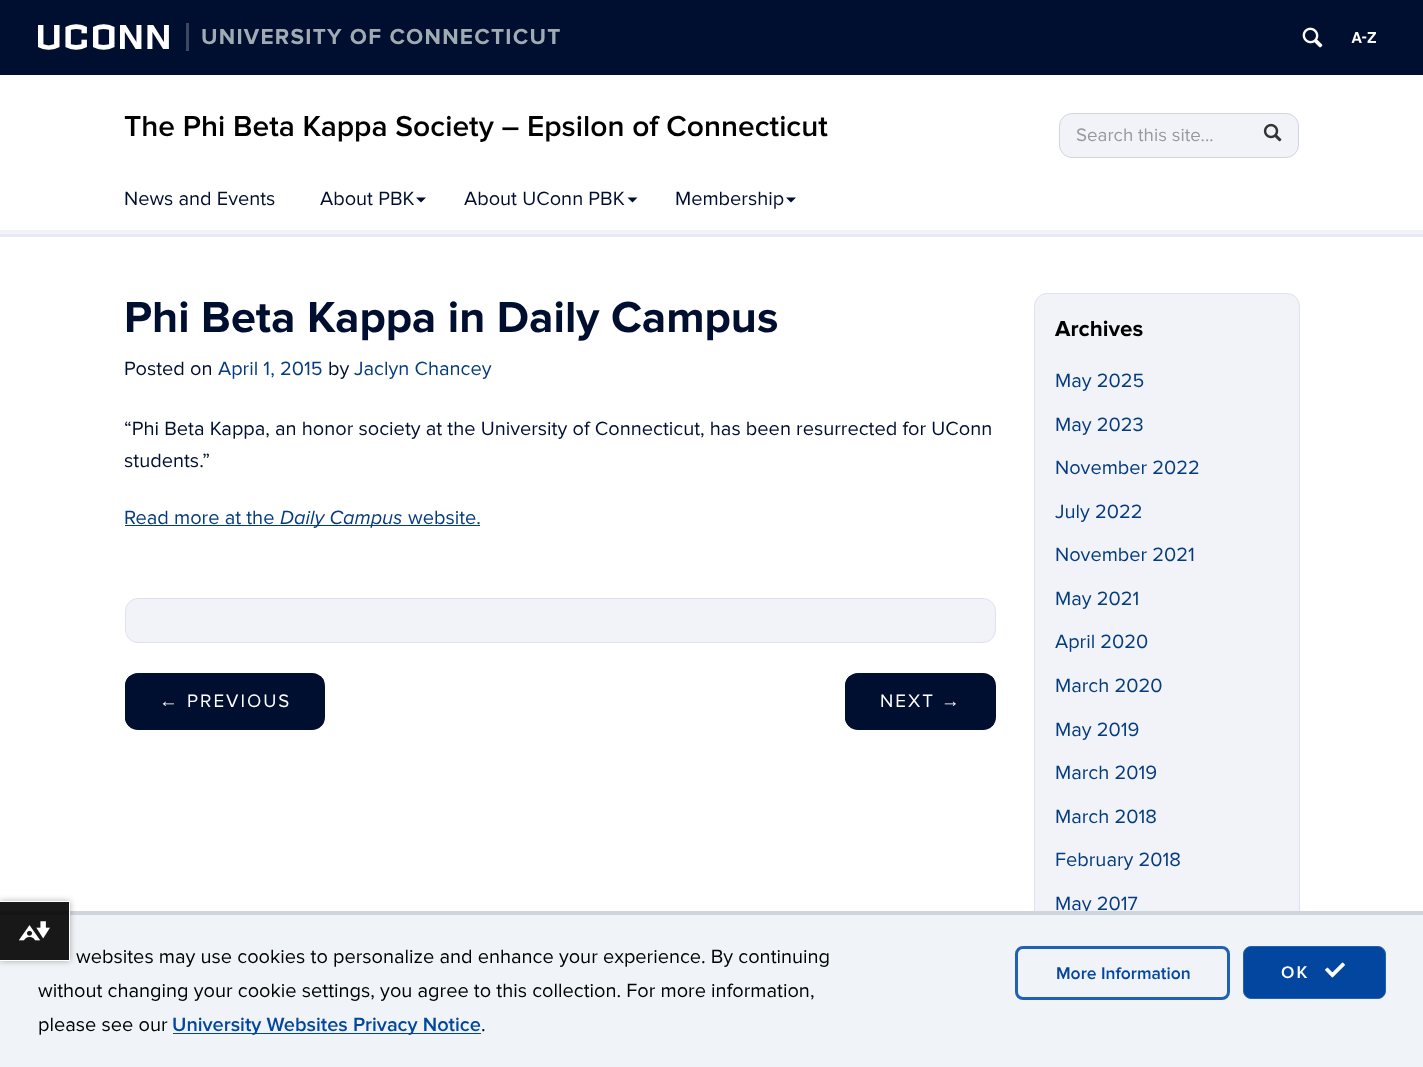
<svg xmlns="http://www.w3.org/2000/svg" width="1423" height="1067">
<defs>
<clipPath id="clip1"><rect x="125" y="673" width="200" height="57" rx="13"/></clipPath>
<clipPath id="clip2"><rect x="845" y="673" width="151" height="57" rx="13"/></clipPath>
<clipPath id="clip3"><path d="M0 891h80v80h-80zm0 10h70v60h-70z" clip-rule="evenodd"/></clipPath>
</defs>
<rect width="100%" height="100%" fill="#fff"/>
<rect width="1423" height="75" fill="#000e2f"/>
<text x="38" y="49" style="font-family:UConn;font-size:40px;letter-spacing:3.75px;fill:#fff">UCONN</text>
<text x="201" y="44" style="font-family:Proxima Nova;font-size:22.5px;font-weight:bold;letter-spacing:1.25px;fill:#9faab2">UNIVERSITY OF CONNECTICUT</text>
<rect x="186" y="23" width="3" height="28" fill="#3f4760"/>
<image x="1302" y="27" width="21" height="21" href="media/1.png"/>
<image x="1351" y="32" width="25" height="11" href="media/2.png"/>
<text x="124" y="136" style="font-family:Proxima Nova;font-size:30px;font-weight:600;fill:#000">The Phi Beta Kappa Society – Epsilon of Connecticut</text>
<rect x="1059.5" y="113.5" width="239" height="44" rx="12.5" fill="#f1f3f8" stroke="#ced5e6"/>
<text x="1076" y="141" style="font-family:Proxima Nova;font-size:18.75px;fill:#999">Search this site...</text>
<image x="1263" y="123" width="19" height="19" href="media/3.png"/>
<text x="124" y="205" style="font-family:Proxima Nova;font-size:20px;fill:#000e2f">News and Events</text>
<text x="320" y="205" style="font-family:Proxima Nova;font-size:20px;fill:#000e2f">About PBK</text>
<path d="M416 197.5h10l-5 5z" fill="#000e2f"/>
<text x="464" y="205" style="font-family:Proxima Nova;font-size:20px;fill:#000e2f">About UConn PBK</text>
<path d="M627.5 197.5h10l-5 5z" fill="#000e2f"/>
<text x="675" y="205" style="font-family:Proxima Nova;font-size:20px;fill:#000e2f">Membership</text>
<path d="M786 197.5h10l-5 5z" fill="#000e2f"/>
<rect y="230" width="1423" height="4" fill="#f1f3f8"/>
<rect y="234" width="1423" height="3" fill="#e7eaf2"/>
<text x="124" y="332" style="font-family:Proxima Nova;font-size:45px;font-weight:bold;fill:#000e2f">Phi Beta Kappa in Daily Campus</text>
<text x="124" y="375" style="font-family:Proxima Nova;font-size:20px;fill:#000e2f">Posted on</text>
<text x="218" y="375" style="font-family:Proxima Nova;font-size:20px;fill:#053c7f">April 1, 2015</text>
<text x="328" y="375" style="font-family:Proxima Nova;font-size:20px;fill:#000e2f">by</text>
<text x="354" y="375" style="font-family:Proxima Nova;font-size:20px;fill:#053c7f">Jaclyn Chancey</text>
<text x="124" y="435" style="font-family:Proxima Nova;font-size:20px;fill:#000e2f">“Phi Beta Kappa, an honor society at the University of Connecticut, has been resurrected for UConn</text>
<text x="124" y="467" style="font-family:Proxima Nova;font-size:20px;fill:#000e2f">students.”</text>
<text x="124" y="524" style="font-family:Proxima Nova;font-size:20px;fill:#053c7f">Read more at the</text>
<rect x="125" y="525" width="355" height="1" fill="#053c7f"/>
<text x="280" y="524" style="font-family:Proxima Nova;font-size:20px;font-style:italic;fill:#053c7f">Daily Campus</text>
<text x="408" y="524" style="font-family:Proxima Nova;font-size:20px;fill:#053c7f">website.</text>
<rect x="125.5" y="598.5" width="870" height="44" rx="12.5" fill="#f1f3f8" stroke="#dee2ec"/>
<g clip-path="url(#clip1)">
<rect x="125" y="676" width="199" height="50" fill="#000e2f"/>
</g>
<rect x="127" y="675" width="196" height="53" rx="11" fill="none" stroke="#000e2f" stroke-width="4"/>
<text x="159" y="707" style="font-family:Liberation Sans;font-size:18.75px;letter-spacing:2px;fill:#fff">←</text>
<text x="187" y="707" style="font-family:Proxima Nova;font-size:18.75px;letter-spacing:2px;fill:#fff">PREVIOUS</text>
<g clip-path="url(#clip2)">
<rect x="845" y="676" width="149" height="50" fill="#000e2f"/>
</g>
<rect x="847" y="675" width="147" height="53" rx="11" fill="none" stroke="#000e2f" stroke-width="4"/>
<text x="880" y="707" style="font-family:Proxima Nova;font-size:18.75px;letter-spacing:2px;fill:#fff">NEXT</text>
<text x="941" y="707" style="font-family:Liberation Sans;font-size:18.75px;letter-spacing:2px;fill:#fff">→</text>
<rect x="1034.5" y="293.5" width="265" height="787" rx="12.5" fill="#f1f3f8" stroke="#dee2ec"/>
<text x="1055" y="336" style="font-family:Proxima Nova;font-size:22.5px;font-weight:bold;fill:#000">Archives</text>
<text x="1055" y="387" style="font-family:Proxima Nova;font-size:20px;fill:#053c7f">May 2025</text>
<text x="1055" y="431" style="font-family:Proxima Nova;font-size:20px;fill:#053c7f">May 2023</text>
<text x="1055" y="474" style="font-family:Proxima Nova;font-size:20px;fill:#053c7f">November 2022</text>
<text x="1055" y="518" style="font-family:Proxima Nova;font-size:20px;fill:#053c7f">July 2022</text>
<text x="1055" y="561" style="font-family:Proxima Nova;font-size:20px;fill:#053c7f">November 2021</text>
<text x="1055" y="605" style="font-family:Proxima Nova;font-size:20px;fill:#053c7f">May 2021</text>
<text x="1055" y="648" style="font-family:Proxima Nova;font-size:20px;fill:#053c7f">April 2020</text>
<text x="1055" y="692" style="font-family:Proxima Nova;font-size:20px;fill:#053c7f">March 2020</text>
<text x="1055" y="736" style="font-family:Proxima Nova;font-size:20px;fill:#053c7f">May 2019</text>
<text x="1055" y="779" style="font-family:Proxima Nova;font-size:20px;fill:#053c7f">March 2019</text>
<text x="1055" y="823" style="font-family:Proxima Nova;font-size:20px;fill:#053c7f">March 2018</text>
<text x="1055" y="866" style="font-family:Proxima Nova;font-size:20px;fill:#053c7f">February 2018</text>
<text x="1055" y="910" style="font-family:Proxima Nova;font-size:20px;fill:#053c7f">May 2017</text>
<rect y="915" width="1423" height="152" fill="#f0f3f7"/>
<rect y="911" width="1423" height="4" fill="#cfd5dd"/>
<g clip-path="url(#clip3)">
<rect y="901" width="70" height="60" fill="#0000004d" filter="blur(3px)"/>
</g>
<rect y="902" width="69" height="58" fill="#000000e6"/>
<rect y="901" width="70" height="1" fill="#fff"/>
<rect x="69" y="911" width="1" height="50" fill="#fff"/>
<rect y="960" width="70" height="1" fill="#fff"/>
<image x="19" y="921" width="31" height="20" href="media/4.png"/>
<text x="76" y="963" style="font-family:Proxima Nova;font-size:20px;fill:#000">websites may use cookies to personalize and enhance your experience. By continuing</text>
<text x="38" y="997" style="font-family:Proxima Nova;font-size:20px;fill:#000">without changing your cookie settings, you agree to this collection. For more information,</text>
<text x="38" y="1031" style="font-family:Proxima Nova;font-size:20px;fill:#000">please see our</text>
<rect x="173" y="1033" width="308" height="1" fill="#03469f"/>
<text x="172" y="1031" style="font-family:Proxima Nova;font-size:20px;font-weight:600;fill:#03469f">University Websites Privacy Notice</text>
<text x="481" y="1031" style="font-family:Proxima Nova;font-size:20px;fill:#000">.</text>
<rect x="1016.5" y="947.5" width="212" height="51" rx="6.5" fill="none" stroke="#2061b6" stroke-width="3"/>
<text x="1056" y="979" style="font-family:Proxima Nova;font-size:17.5px;font-weight:600;fill:#03469f">More Information</text>
<rect x="1243.5" y="946.5" width="142" height="52" rx="7.5" fill="#03469f" stroke="#2061b6"/>
<text x="1281" y="978" style="font-family:Proxima Nova;font-size:17.5px;font-weight:600;letter-spacing:2px;fill:#fff">OK</text>
<image x="1325" y="962" width="20" height="16" href="media/5.png"/>
</svg>
